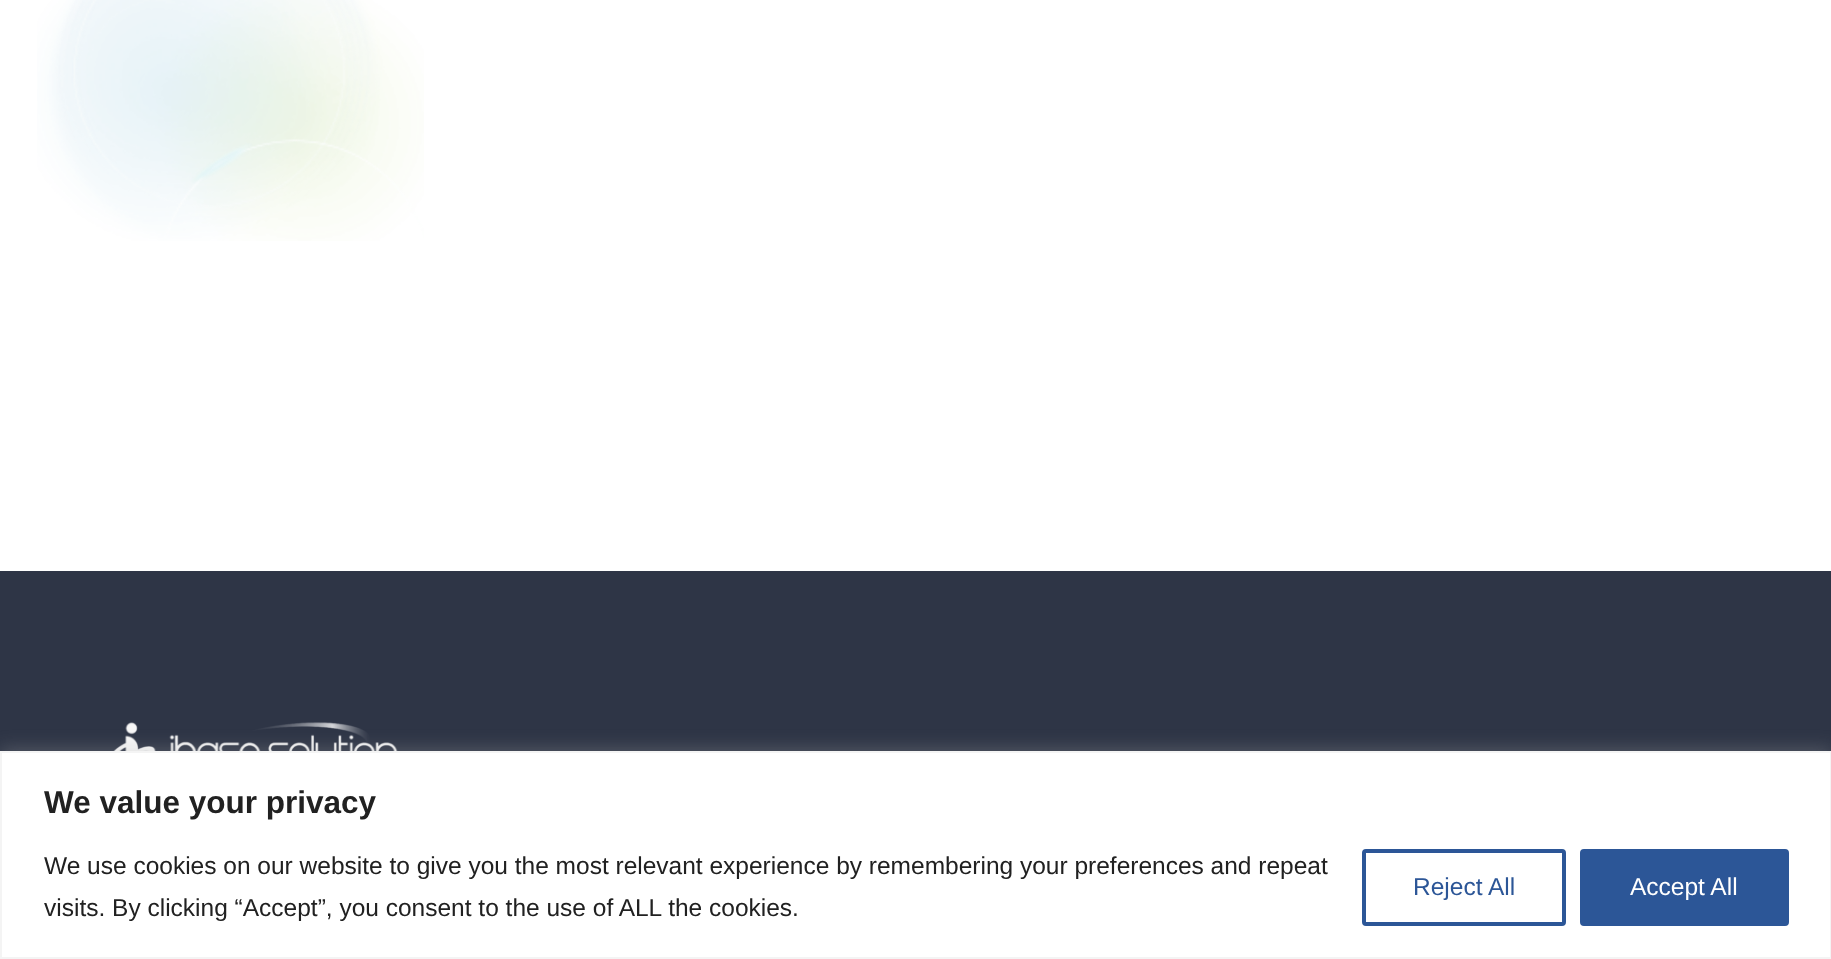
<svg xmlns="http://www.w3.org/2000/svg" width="1831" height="959">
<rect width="100%" height="100%" fill="#fff"/>
<image x="37" y="0" width="387" height="241" href="media/1.png"/>
<rect y="571" width="1831" height="180" fill="#2e3546"/>
<image x="113" y="722" width="285" height="29" href="media/2.png"/>
<rect y="749" width="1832" height="208" fill="#acabab4d" filter="blur(9px)"/>
<rect x="1" y="752" width="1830" height="206" fill="#fff" stroke="#f4f4f4" stroke-width="2"/>
<text x="44" y="813" style="font-family:Liberation Sans;font-size:31.5px;font-weight:bold;fill:#212121">We value your privacy</text>
<text x="44" y="874" style="font-family:Liberation Sans;font-size:24.5px;fill:#212121">We use cookies on our website to give you the most relevant experience by remembering your preferences and repeat</text>
<text x="44" y="916" style="font-family:Liberation Sans;font-size:24.5px;fill:#212121">visits. By clicking “Accept”, you consent to the use of ALL the cookies.</text>
<rect x="1364" y="851" width="200" height="73" rx="2" fill="none" stroke="#2c5697" stroke-width="4"/>
<text x="1413" y="895" style="font-family:Liberation Sans;font-size:24.5px;fill:#2c5697">Reject All</text>
<rect x="1582" y="851" width="205" height="73" rx="2" fill="#2c5697" stroke="#2c5697" stroke-width="4"/>
<text x="1630" y="895" style="font-family:Liberation Sans;font-size:24.5px;fill:#fff">Accept All</text>
</svg>
